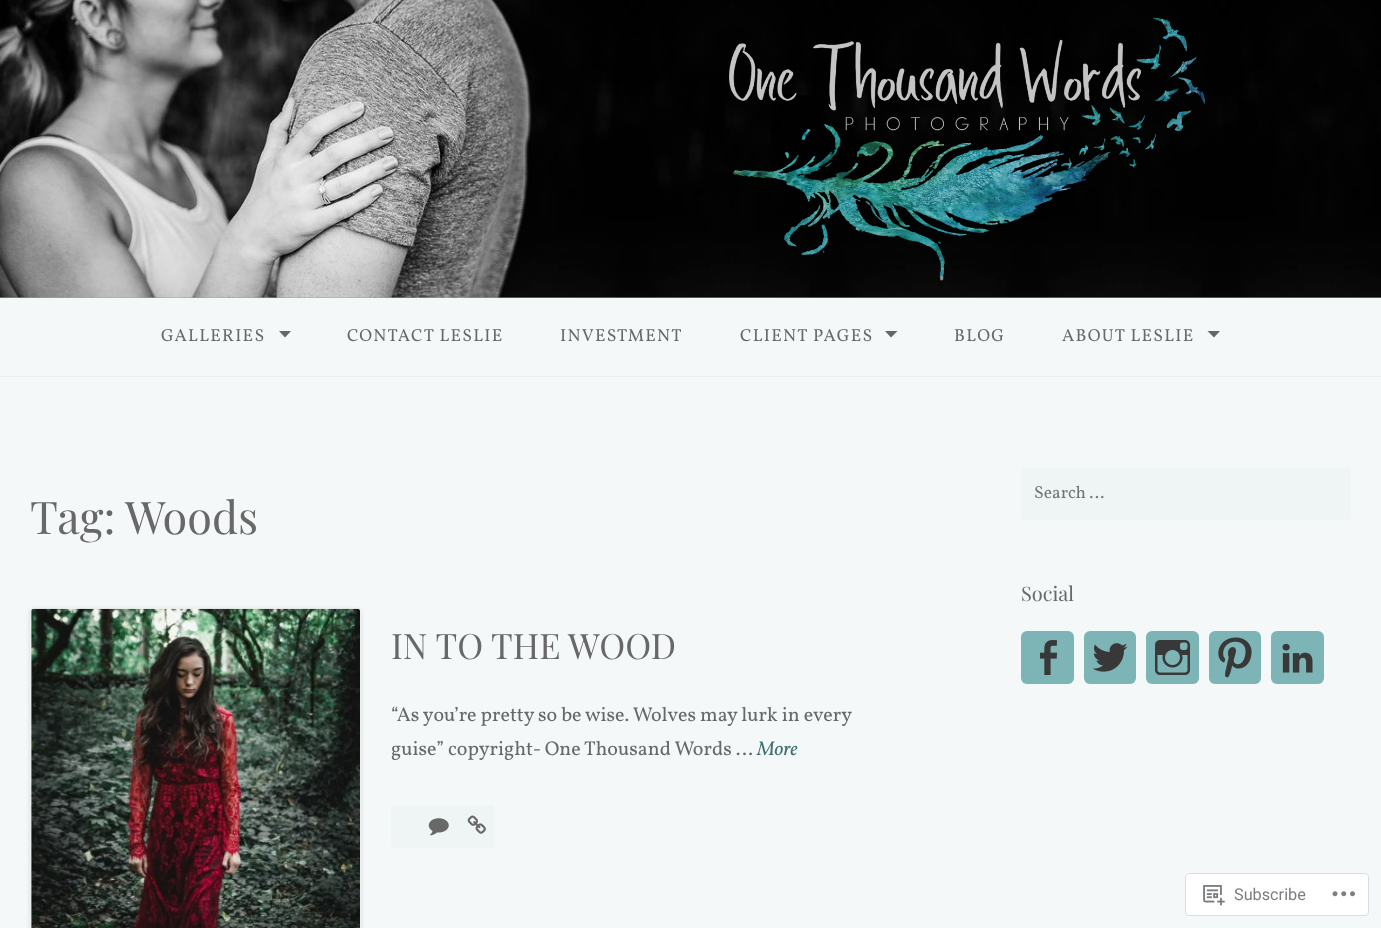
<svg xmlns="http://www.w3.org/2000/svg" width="1381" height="928">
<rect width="100%" height="100%" fill="#f5f8f8"/>
<rect y="297" width="1381" height="1" fill="#7db4b5"/>
<image x="0" y="0" width="1381" height="298" href="media/1.png"/>
<rect y="376" width="1381" height="1" fill="#eef0f0"/>
<text x="161" y="341" style="font-family:Vollkorn;font-size:17.5px;letter-spacing:1.25px;fill:#686868">GALLERIES</text>
<path d="M279 331h12l-6 6.5z" fill="#666"/>
<text x="347" y="341" style="font-family:Vollkorn;font-size:17.5px;letter-spacing:1.25px;fill:#686868">CONTACT LESLIE</text>
<text x="560" y="341" style="font-family:Vollkorn;font-size:17.5px;letter-spacing:1.25px;fill:#686868">INVESTMENT</text>
<text x="740" y="341" style="font-family:Vollkorn;font-size:17.5px;letter-spacing:1.25px;fill:#686868">CLIENT PAGES</text>
<path d="M885 331h12.5l-6.5 6.5z" fill="#666"/>
<text x="954" y="341" style="font-family:Vollkorn;font-size:17.5px;letter-spacing:1.25px;fill:#686868">BLOG</text>
<text x="1062" y="341" style="font-family:Vollkorn;font-size:17.5px;letter-spacing:1.25px;fill:#686868">ABOUT LESLIE</text>
<path d="M1207.5 331h12.5l-6 6.5z" fill="#666"/>
<text x="30" y="534" style="font-family:Playfair Display;font-size:45px;fill:#686868">Tag:</text>
<text x="125" y="534" style="font-family:Playfair Display;font-size:45px;fill:#686868">Woods</text>
<rect x="30" y="609" width="331" height="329" rx="4" fill="#0000001f" filter="blur(2px)"/>
<rect x="30.5" y="608.5" width="330" height="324" rx="3.5" fill="none" stroke="#eef0f0"/>
<image x="31" y="608" width="329" height="320" href="media/2.png"/>
<text x="391" y="659" style="font-family:Playfair Display;font-size:35px;fill:#686868">IN TO THE WOOD</text>
<text x="391" y="721" style="font-family:Vollkorn;font-size:20px;fill:#686868">“As you’re pretty so be wise. Wolves may lurk in every</text>
<text x="391" y="755" style="font-family:Vollkorn;font-size:20px;fill:#686868">guise” copyright- One Thousand Words …</text>
<text x="757" y="755" style="font-family:Vollkorn;font-size:20px;font-style:italic;fill:#417071">More</text>
<path d="M395 805h61v43h-61c-2 0-4-2-4-4v-35c0-2 2-4 4-4z" fill="#eff4f4"/>
<rect x="456" y="806" width="4" height="43" fill="#eff4f4"/>
<rect x="460" y="805" width="34" height="43" fill="#eff4f4"/>
<image x="428" y="818" width="21" height="18" href="media/3.png"/>
<image x="467" y="815" width="19" height="19" href="media/4.png"/>
<rect x="1021" y="468" width="330" height="52" rx="4" fill="#eff4f4"/>
<text x="1034" y="498" style="font-family:Vollkorn;font-size:17.5px;fill:#757575">Search …</text>
<text x="1021" y="601" style="font-family:Playfair Display;font-size:20px;fill:#686868">Social</text>
<rect x="1021" y="631" width="53" height="53" rx="6" fill="#7db4b5"/>
<image x="1040" y="640" width="17" height="35" href="media/5.png"/>
<rect x="1084" y="631" width="52" height="53" rx="6" fill="#7db4b5"/>
<image x="1092" y="643" width="36" height="29" href="media/6.png"/>
<rect x="1146" y="631" width="53" height="53" rx="6" fill="#7db4b5"/>
<image x="1155" y="640" width="35" height="35" href="media/7.png"/>
<rect x="1209" y="631" width="52" height="53" rx="6" fill="#7db4b5"/>
<image x="1218" y="637" width="34" height="41" href="media/8.png"/>
<rect x="1271" y="631" width="53" height="53" rx="6" fill="#7db4b5"/>
<image x="1282" y="643" width="31" height="30" href="media/9.png"/>
<rect x="1185.5" y="873.5" width="183" height="42" rx="3.5" fill="#fff" stroke="#dddddf"/>
<image x="1203" y="885" width="22" height="21" href="media/10.png"/>
<text x="1234" y="900" style="font-family:Roboto;font-size:16.25px;fill:#7b7e84">Subscribe</text>
<image x="1332" y="891" width="23" height="6" href="media/11.png"/>
</svg>
